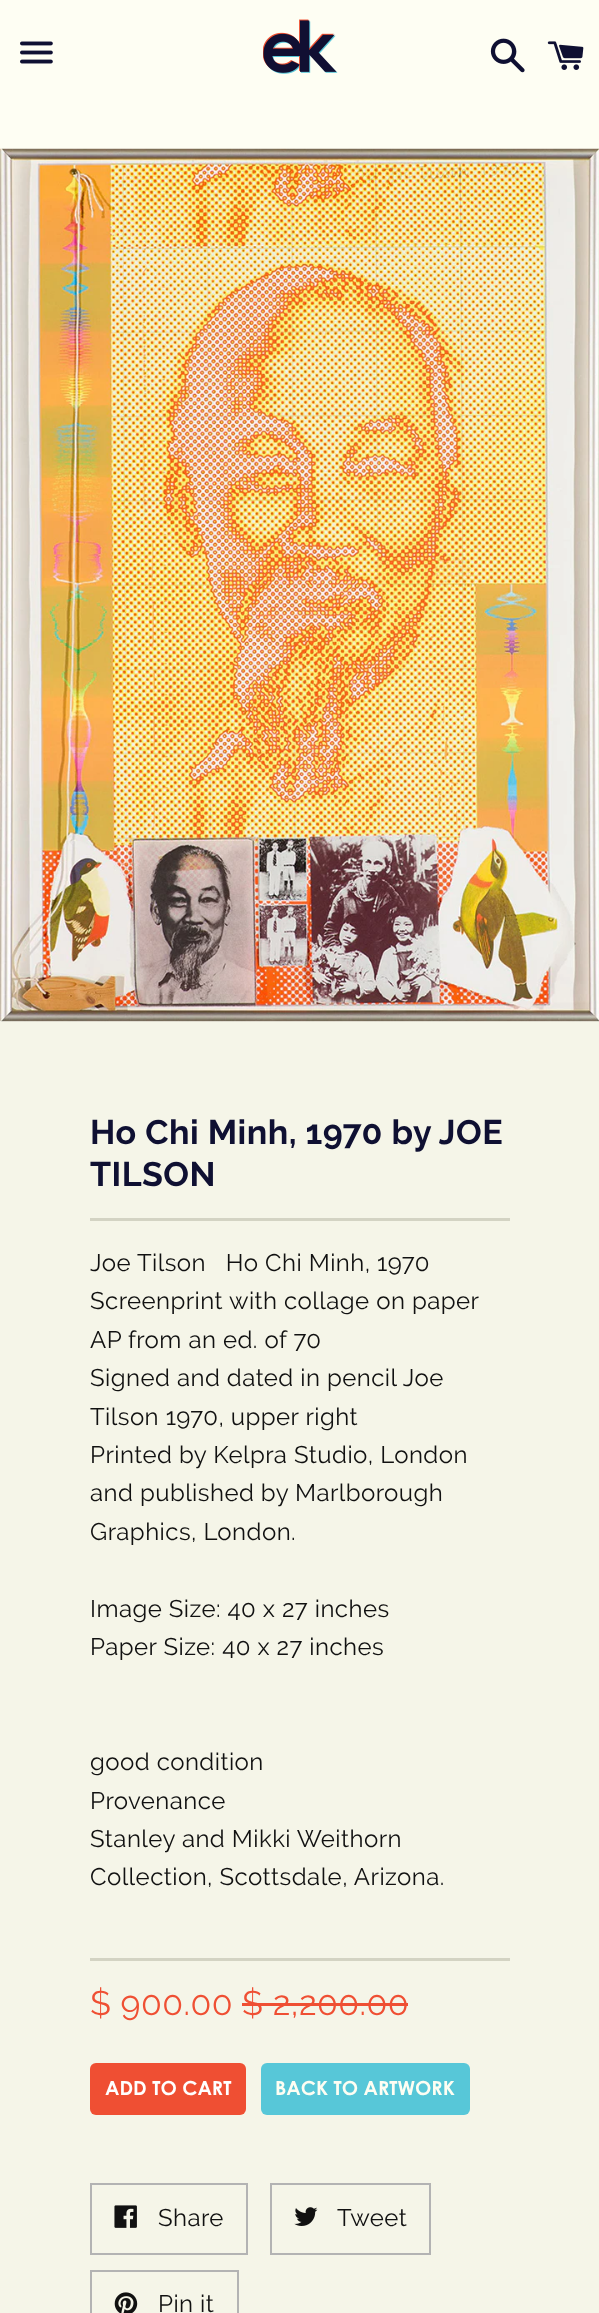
<svg xmlns="http://www.w3.org/2000/svg" width="599" height="2313">
<rect width="100%" height="100%" fill="#fefef3"/>
<image x="20" y="41" width="33" height="23" href="media/1.png"/>
<image x="263" y="19" width="75" height="55" href="media/2.png"/>
<image x="490" y="38" width="35" height="35" href="media/3.png"/>
<image x="547" y="41" width="37" height="29" href="media/4.png"/>
<image x="0" y="148" width="599" height="874" href="media/5.png"/>
<rect y="1022" width="599" height="1291" fill="#f5f5e8"/>
<text x="90" y="1144" style="font-family:Raleway;font-size:34px;font-weight:bold;letter-spacing:0.45px;fill:#0f1032">Ho Chi Minh, 1970 by JOE</text>
<text x="90" y="1186" style="font-family:Raleway;font-size:34px;font-weight:bold;letter-spacing:0.45px;fill:#0f1032">TILSON</text>
<rect x="90" y="1218" width="420" height="3" fill="#d3d3c3"/>
<text x="90" y="1271" style="font-family:Raleway;font-size:24px;letter-spacing:0.45px;fill:#111" xml:space="preserve">Joe Tilson   Ho Chi Minh, 1970</text>
<text x="90" y="1309" style="font-family:Raleway;font-size:24px;letter-spacing:0.45px;fill:#111">Screenprint with collage on paper</text>
<text x="90" y="1348" style="font-family:Raleway;font-size:24px;letter-spacing:0.45px;fill:#111">AP from an ed. of 70</text>
<text x="90" y="1386" style="font-family:Raleway;font-size:24px;letter-spacing:0.45px;fill:#111">Signed and dated in pencil Joe</text>
<text x="90" y="1425" style="font-family:Raleway;font-size:24px;letter-spacing:0.45px;fill:#111">Tilson 1970, upper right</text>
<text x="90" y="1463" style="font-family:Raleway;font-size:24px;letter-spacing:0.45px;fill:#111">Printed by Kelpra Studio, London</text>
<text x="90" y="1501" style="font-family:Raleway;font-size:24px;letter-spacing:0.45px;fill:#111">and published by Marlborough</text>
<text x="90" y="1540" style="font-family:Raleway;font-size:24px;letter-spacing:0.45px;fill:#111">Graphics, London.</text>
<text x="90" y="1617" style="font-family:Raleway;font-size:24px;letter-spacing:0.45px;fill:#111">Image Size: 40 x 27 inches</text>
<text x="90" y="1655" style="font-family:Raleway;font-size:24px;letter-spacing:0.45px;fill:#111">Paper Size: 40 x 27 inches</text>
<text x="90" y="1770" style="font-family:Raleway;font-size:24px;letter-spacing:0.45px;fill:#111">good condition</text>
<text x="90" y="1809" style="font-family:Raleway;font-size:24px;letter-spacing:0.45px;fill:#111">Provenance</text>
<text x="90" y="1847" style="font-family:Raleway;font-size:24px;letter-spacing:0.45px;fill:#111">Stanley and Mikki Weithorn</text>
<text x="90" y="1885" style="font-family:Raleway;font-size:24px;letter-spacing:0.45px;fill:#111">Collection, Scottsdale, Arizona.</text>
<rect x="90" y="1958" width="420" height="3" fill="#d3d3c3"/>
<text x="90" y="2015" style="font-family:Raleway;font-size:34px;letter-spacing:0.45px;fill:#ef4f33">$ 900.00 $ 2,200.00</text>
<rect x="242" y="2003" width="166" height="3" fill="#ef4f33"/>
<rect x="90" y="2063" width="156" height="52" rx="6" fill="#ef4f33"/>
<text x="105" y="2095" style="font-family:Century Gothic;font-size:19.5px;font-weight:bold;fill:#fff">ADD TO CART</text>
<rect x="261" y="2063" width="209" height="52" rx="6" fill="#57c7d8"/>
<text x="275" y="2095" style="font-family:Century Gothic;font-size:19.5px;font-weight:bold;fill:#fefef3">BACK TO ARTWORK</text>
<rect x="91" y="2184" width="156" height="70" fill="none" stroke="#b3b3b3" stroke-width="2"/>
<image x="114" y="2205" width="23" height="23" href="media/6.png"/>
<text x="158" y="2226" style="font-family:Raleway;font-size:24px;letter-spacing:0.45px;fill:#111">Share</text>
<rect x="271" y="2184" width="159" height="70" fill="none" stroke="#b3b3b3" stroke-width="2"/>
<image x="294" y="2207" width="24" height="19" href="media/7.png"/>
<text x="337" y="2226" style="font-family:Raleway;font-size:24px;letter-spacing:0.45px;fill:#111">Tweet</text>
<rect x="91" y="2271" width="147" height="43" fill="none" stroke="#b3b3b3" stroke-width="2"/>
<image x="114" y="2292" width="24" height="21" href="media/8.png"/>
<text x="158" y="2312" style="font-family:Raleway;font-size:24px;letter-spacing:0.45px;fill:#111">Pin it</text>
</svg>
